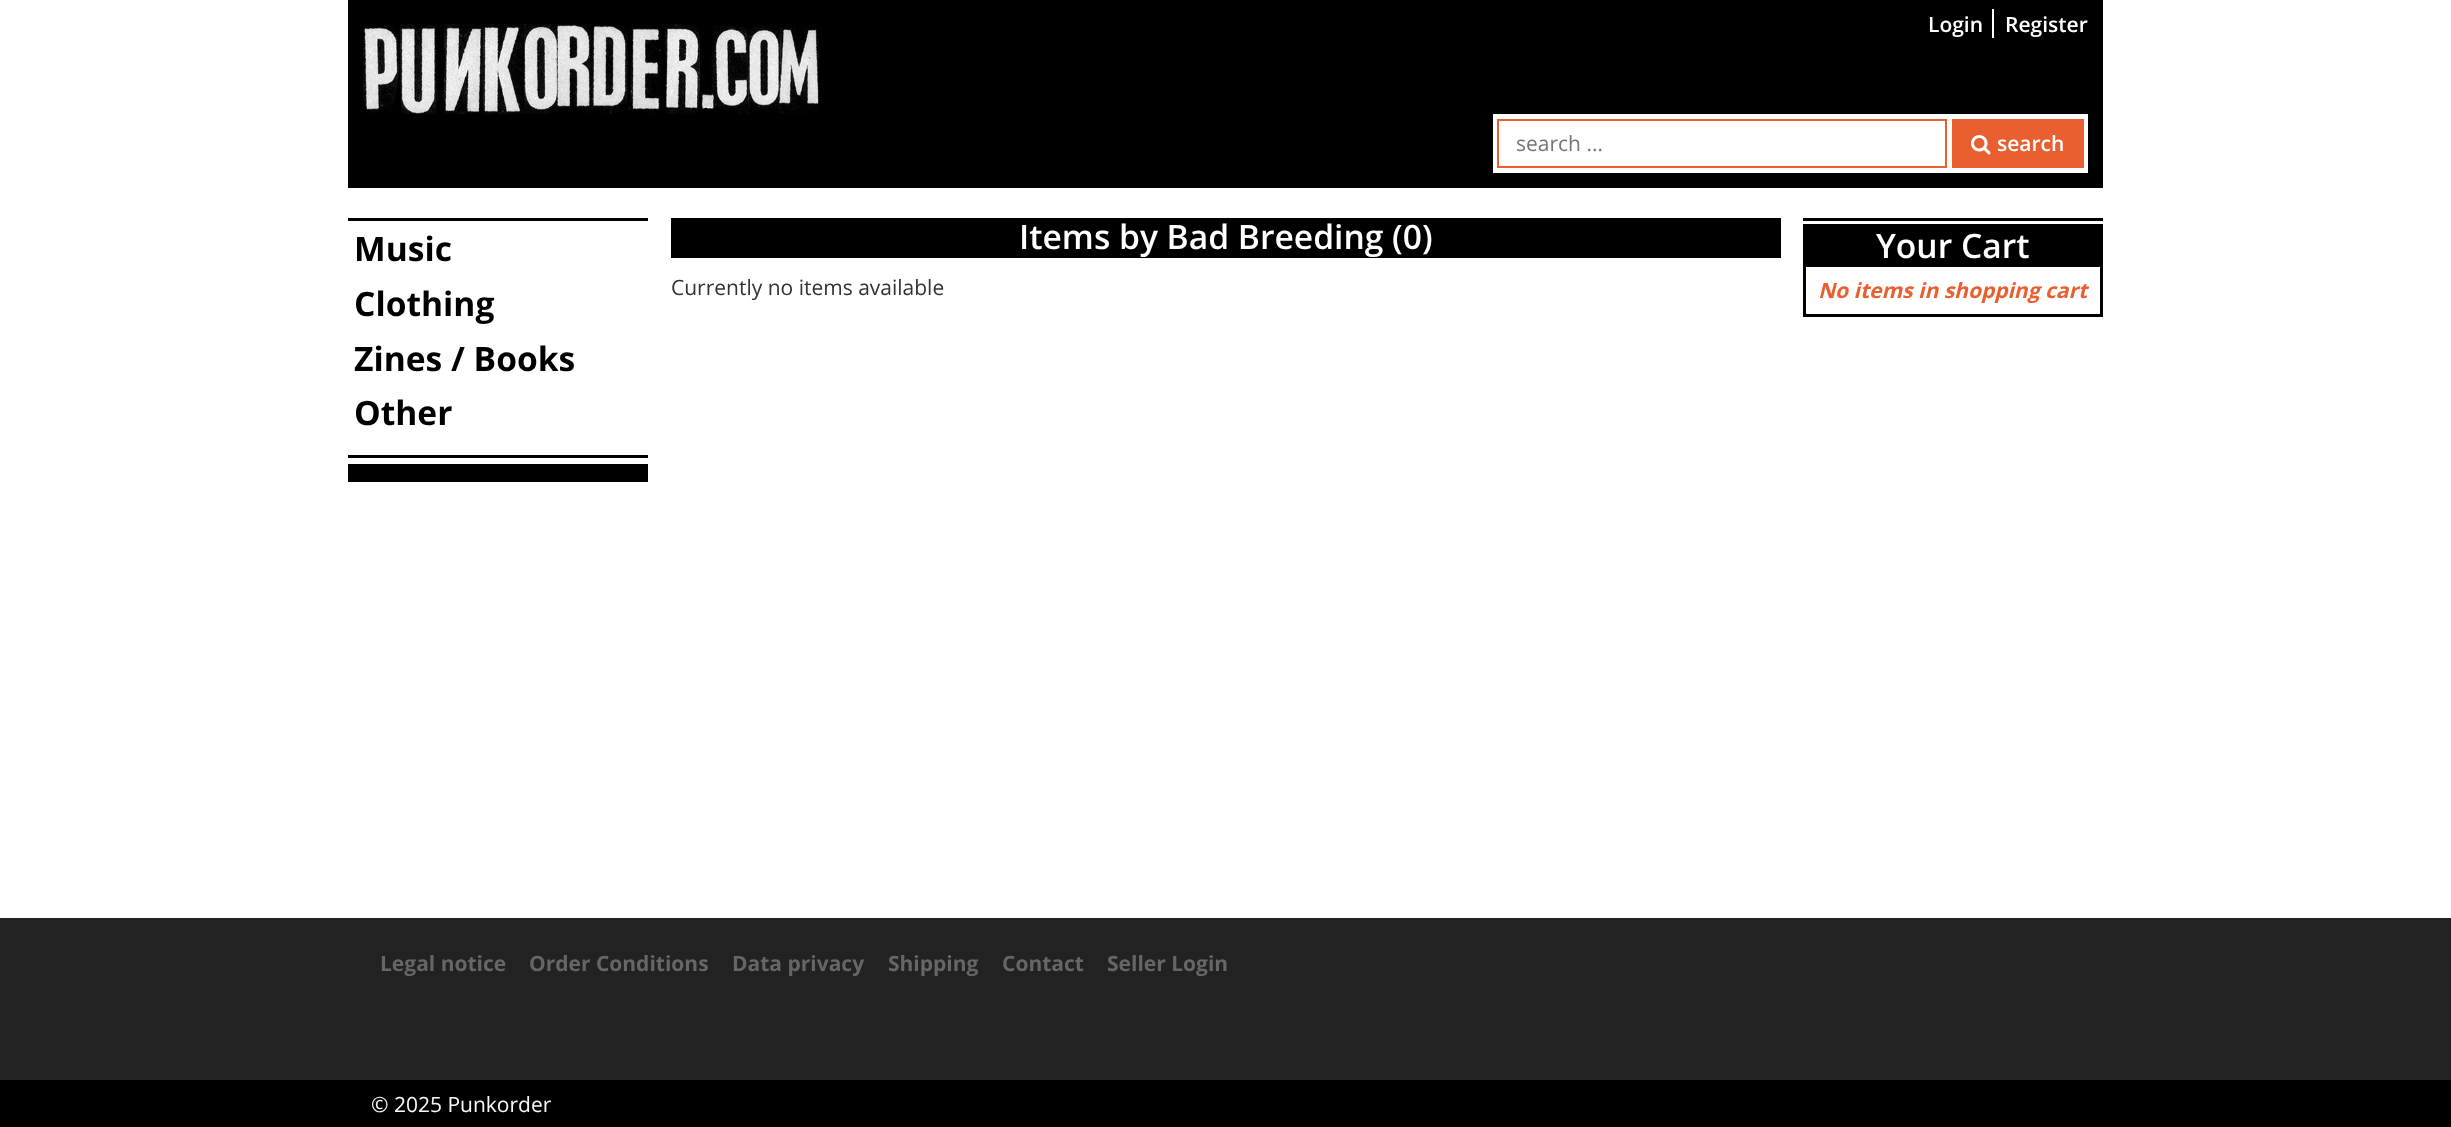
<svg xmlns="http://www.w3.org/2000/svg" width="2451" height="1127">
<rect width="100%" height="100%" fill="#fff"/>
<rect x="348" width="1755" height="188" fill="#000"/>
<image x="363" y="24" width="456" height="90" href="media/1.png"/>
<text x="1928" y="32" style="font-family:Open Sans;font-size:21px;font-weight:600;fill:#fff">Login</text>
<rect x="1992" y="9" width="2" height="29" fill="#fff"/>
<text x="2005" y="32" style="font-family:Open Sans;font-size:21px;font-weight:600;fill:#fff">Register</text>
<rect x="1493" y="114" width="595" height="59" fill="#fff"/>
<rect x="1498" y="120" width="448" height="47" fill="none" stroke="#e95f30" stroke-width="2"/>
<text x="1516" y="151" style="font-family:Open Sans;font-size:21px;fill:#757575">search ...</text>
<rect x="1952" y="119" width="132" height="49" fill="#e95f30"/>
<image x="1971" y="135" width="20" height="20" href="media/2.png"/>
<text x="1997" y="151" style="font-family:Open Sans;font-size:21px;font-weight:600;fill:#fff">search</text>
<rect x="348" y="218" width="300" height="3" fill="#000"/>
<text x="354" y="261" style="font-family:Open Sans;font-size:33.6px;font-weight:bold;fill:#000">Music</text>
<text x="354" y="316" style="font-family:Open Sans;font-size:33.6px;font-weight:bold;fill:#000">Clothing</text>
<text x="354" y="371" style="font-family:Open Sans;font-size:33.6px;font-weight:bold;fill:#000">Zines / Books</text>
<text x="354" y="425" style="font-family:Open Sans;font-size:33.6px;font-weight:bold;fill:#000">Other</text>
<rect x="348" y="455" width="300" height="3" fill="#000"/>
<rect x="348" y="464" width="300" height="18" fill="#000"/>
<rect x="671" y="218" width="1110" height="40" fill="#000"/>
<text x="1019" y="249" style="font-family:Open Sans;font-size:33.6px;font-weight:600;fill:#fff">Items by Bad Breeding (0)</text>
<text x="671" y="295" style="font-family:Open Sans;font-size:21px;fill:#333">Currently no items available</text>
<rect x="1803" y="218" width="300" height="3" fill="#000"/>
<rect x="1804.5" y="225.5" width="297" height="90" fill="none" stroke="#000" stroke-width="3"/>
<rect x="1806" y="227" width="294" height="40" fill="#000"/>
<text x="1876" y="258" style="font-family:Open Sans;font-size:33.6px;font-weight:600;fill:#fff">Your Cart</text>
<text x="1818" y="298" style="font-family:Open Sans;font-size:21px;font-weight:bold;font-style:italic;fill:#e95f30">No items in shopping cart</text>
<rect y="918" width="2451" height="162" fill="#222"/>
<text x="380" y="971" style="font-family:Open Sans;font-size:21px;font-weight:bold;fill:#666">Legal notice</text>
<text x="529" y="971" style="font-family:Open Sans;font-size:21px;font-weight:bold;fill:#666">Order Conditions</text>
<text x="732" y="971" style="font-family:Open Sans;font-size:21px;font-weight:bold;fill:#666">Data privacy</text>
<text x="888" y="971" style="font-family:Open Sans;font-size:21px;font-weight:bold;fill:#666">Shipping</text>
<text x="1002" y="971" style="font-family:Open Sans;font-size:21px;font-weight:bold;fill:#666">Contact</text>
<text x="1107" y="971" style="font-family:Open Sans;font-size:21px;font-weight:bold;fill:#666">Seller Login</text>
<rect y="1080" width="2451" height="47" fill="#000"/>
<text x="371" y="1112" style="font-family:Open Sans;font-size:21px;fill:#f8f8f8">© 2025 Punkorder</text>
</svg>
